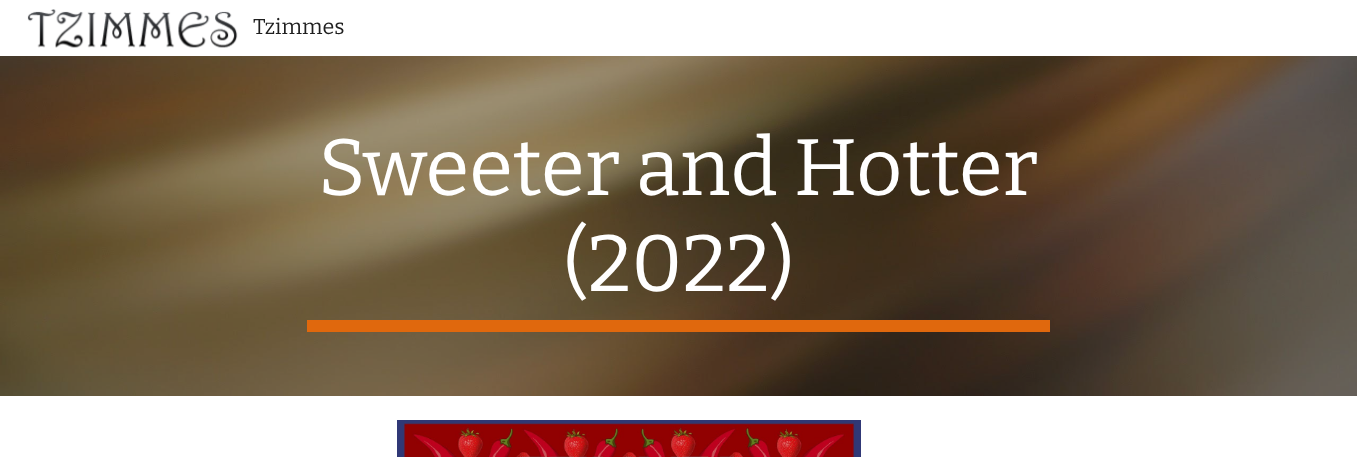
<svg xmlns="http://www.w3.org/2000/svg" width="1357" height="457">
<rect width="100%" height="100%" fill="#fff"/>
<image x="27" y="9" width="211" height="39" href="media/1.png"/>
<text x="253" y="34" style="font-family:Bitter;font-size:21.5px;fill:#1f1f1f">Tzimmes</text>
<image x="0" y="56" width="1357" height="340" href="media/2.png"/>
<text x="318" y="195" style="font-family:Bitter;font-size:80px;fill:#fff">Sweeter and Hotter</text>
<text x="563" y="291" style="font-family:Bitter;font-size:80px;fill:#fff">(2022)</text>
<rect x="307" y="320" width="743" height="12" fill="#e0680d"/>
<image x="397" y="420" width="464" height="37" href="media/3.png"/>
</svg>
